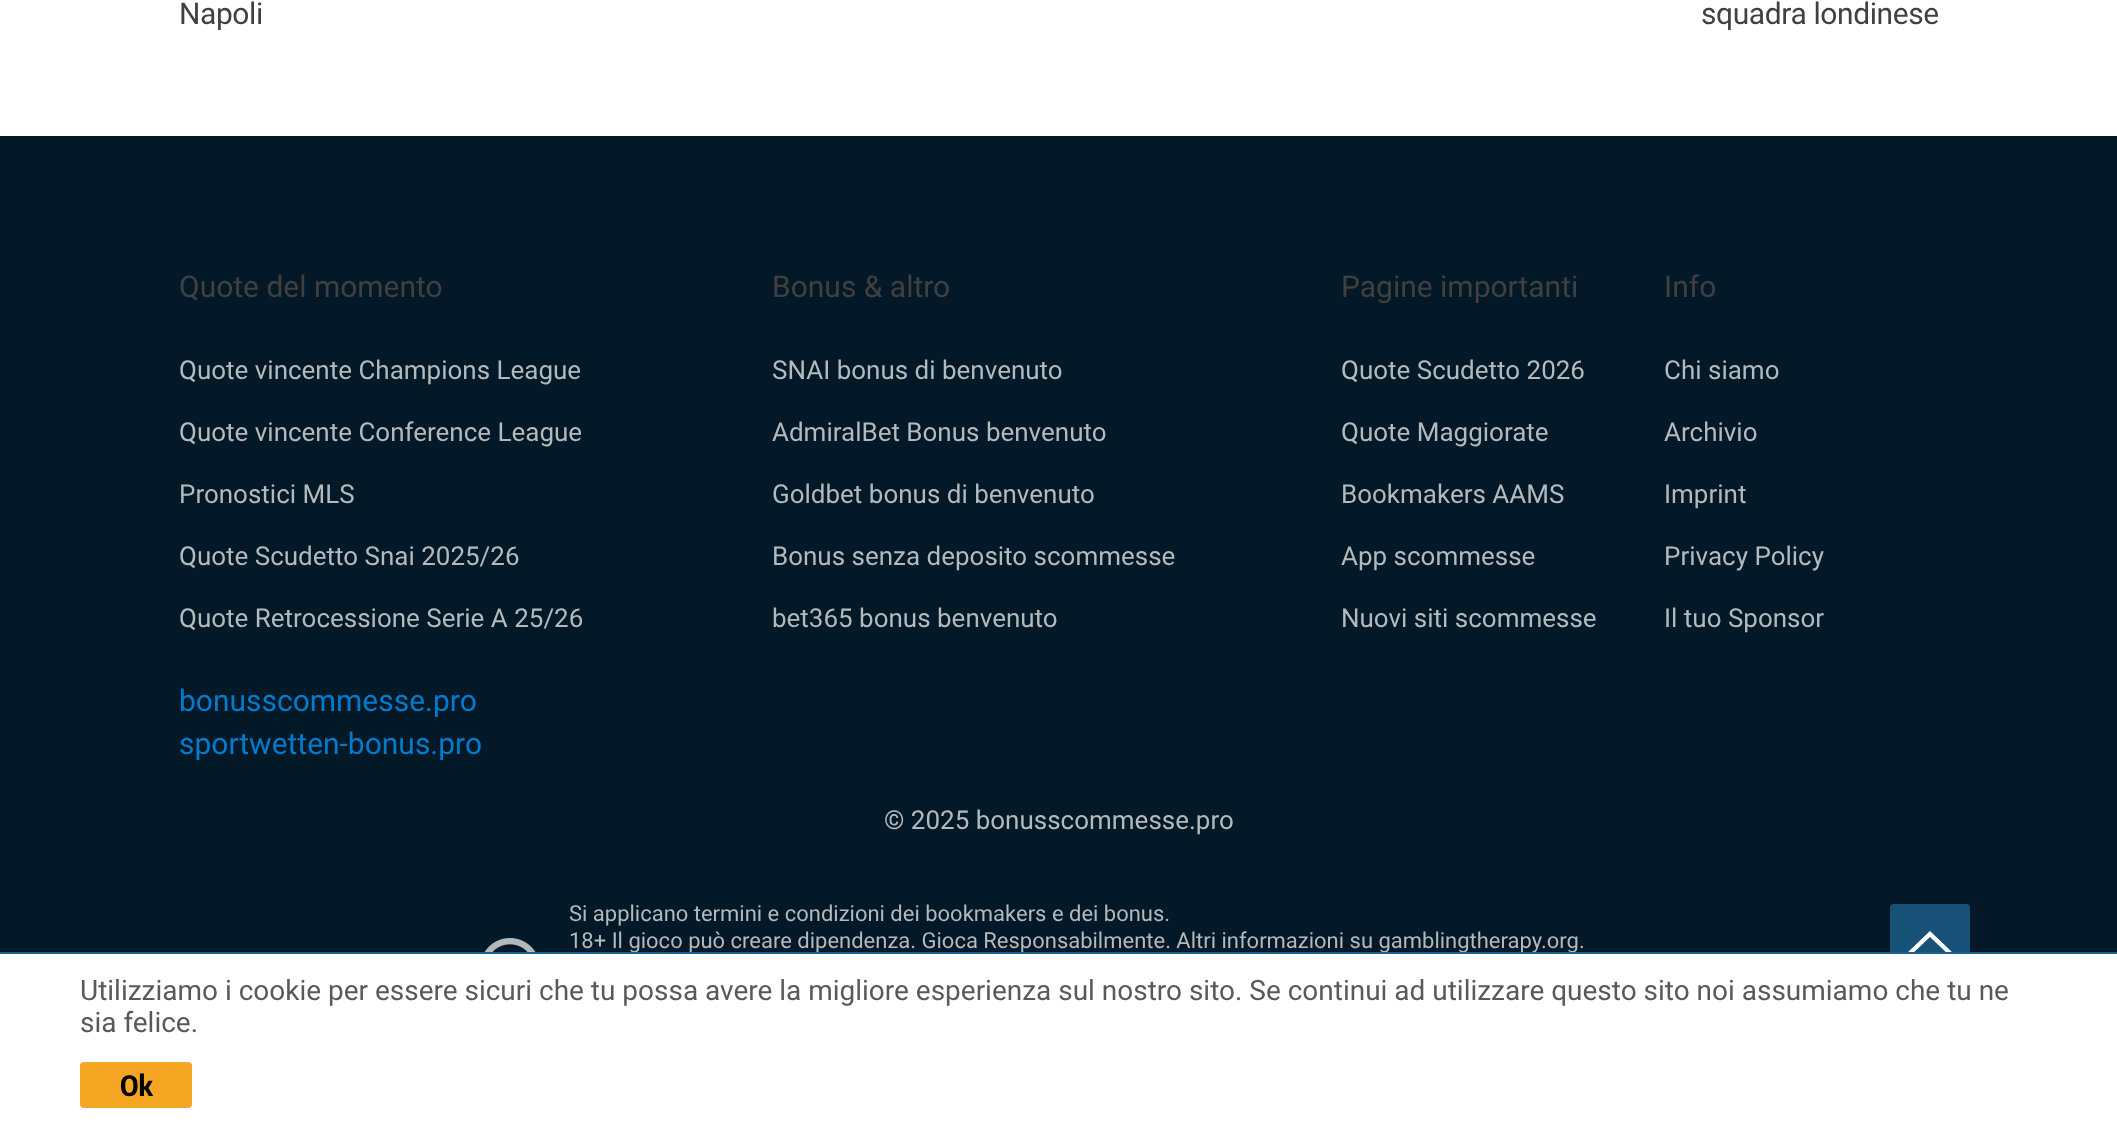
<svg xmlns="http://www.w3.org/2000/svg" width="2117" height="1124">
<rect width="100%" height="100%" fill="#031927"/>
<rect width="2117" height="136" fill="#fff"/>
<text x="179" y="24" style="font-family:Roboto;font-size:30px;letter-spacing:-0.4px;fill:#404040">Napoli</text>
<text x="1701" y="24" style="font-family:Roboto;font-size:30px;letter-spacing:-0.4px;fill:#404040">squadra londinese</text>
<text x="179" y="297" style="font-family:Roboto;font-size:30px;fill:#404040">Quote del momento</text>
<text x="179" y="379" style="font-family:Roboto;font-size:26px;fill:#b3babe">Quote vincente Champions League</text>
<text x="179" y="441" style="font-family:Roboto;font-size:26px;fill:#b3babe">Quote vincente Conference League</text>
<text x="179" y="503" style="font-family:Roboto;font-size:26px;fill:#b3babe">Pronostici MLS</text>
<text x="179" y="565" style="font-family:Roboto;font-size:26px;fill:#b3babe">Quote Scudetto Snai 2025/26</text>
<text x="179" y="627" style="font-family:Roboto;font-size:26px;fill:#b3babe">Quote Retrocessione Serie A 25/26</text>
<text x="772" y="297" style="font-family:Roboto;font-size:30px;fill:#404040">Bonus &amp; altro</text>
<text x="772" y="379" style="font-family:Roboto;font-size:26px;fill:#b3babe">SNAI bonus di benvenuto</text>
<text x="772" y="441" style="font-family:Roboto;font-size:26px;fill:#b3babe">AdmiralBet Bonus benvenuto</text>
<text x="772" y="503" style="font-family:Roboto;font-size:26px;fill:#b3babe">Goldbet bonus di benvenuto</text>
<text x="772" y="565" style="font-family:Roboto;font-size:26px;fill:#b3babe">Bonus senza deposito scommesse</text>
<text x="772" y="627" style="font-family:Roboto;font-size:26px;fill:#b3babe">bet365 bonus benvenuto</text>
<text x="1341" y="297" style="font-family:Roboto;font-size:30px;fill:#404040">Pagine importanti</text>
<text x="1341" y="379" style="font-family:Roboto;font-size:26px;fill:#b3babe">Quote Scudetto 2026</text>
<text x="1341" y="441" style="font-family:Roboto;font-size:26px;fill:#b3babe">Quote Maggiorate</text>
<text x="1341" y="503" style="font-family:Roboto;font-size:26px;fill:#b3babe">Bookmakers AAMS</text>
<text x="1341" y="565" style="font-family:Roboto;font-size:26px;fill:#b3babe">App scommesse</text>
<text x="1341" y="627" style="font-family:Roboto;font-size:26px;fill:#b3babe">Nuovi siti scommesse</text>
<text x="1664" y="297" style="font-family:Roboto;font-size:30px;fill:#404040">Info</text>
<text x="1664" y="379" style="font-family:Roboto;font-size:26px;fill:#b3babe">Chi siamo</text>
<text x="1664" y="441" style="font-family:Roboto;font-size:26px;fill:#b3babe">Archivio</text>
<text x="1664" y="503" style="font-family:Roboto;font-size:26px;fill:#b3babe">Imprint</text>
<text x="1664" y="565" style="font-family:Roboto;font-size:26px;fill:#b3babe">Privacy Policy</text>
<text x="1664" y="627" style="font-family:Roboto;font-size:26px;fill:#b3babe">Il tuo Sponsor</text>
<text x="179" y="711" style="font-family:Roboto;font-size:30px;fill:#017bcd">bonusscommesse.pro</text>
<text x="179" y="754" style="font-family:Roboto;font-size:30px;fill:#017bcd">sportwetten-bonus.pro</text>
<text x="884" y="829" style="font-family:Roboto;font-size:26px;fill:#b3babe">© 2025 bonusscommesse.pro</text>
<image x="484" y="938" width="52" height="14" href="media/1.png"/>
<text x="569" y="921" style="font-family:Roboto;font-size:22px;fill:#b3babe">Si applicano termini e condizioni dei bookmakers e dei bonus.</text>
<text x="569" y="948" style="font-family:Roboto;font-size:22px;fill:#b3babe">18+ Il gioco può creare dipendenza. Gioca Responsabilmente. Altri informazioni su gamblingtherapy.org.</text>
<rect x="1890" y="904" width="80" height="80" rx="4" fill="#175178"/>
<path d="M1950 956l-20-19l-20 19l-3-3l23-22l23 22z" fill="#fff" fill-rule="evenodd"/>
<rect y="954" width="2117" height="170" fill="#fff"/>
<rect y="952" width="2117" height="2" fill="#1b6294"/>
<text x="80" y="1000" style="font-family:Roboto;font-size:28px;fill:#595959">Utilizziamo i cookie per essere sicuri che tu possa avere la migliore esperienza sul nostro sito. Se continui ad utilizzare questo sito noi assumiamo che tu ne</text>
<text x="80" y="1032" style="font-family:Roboto;font-size:28px;fill:#595959">sia felice.</text>
<rect x="80" y="1062" width="112" height="46" rx="4" fill="#f5a623"/>
<text x="120" y="1096" style="font-family:Encode Sans Condensed;font-size:28px;font-weight:bold;fill:#000">Ok</text>
</svg>
